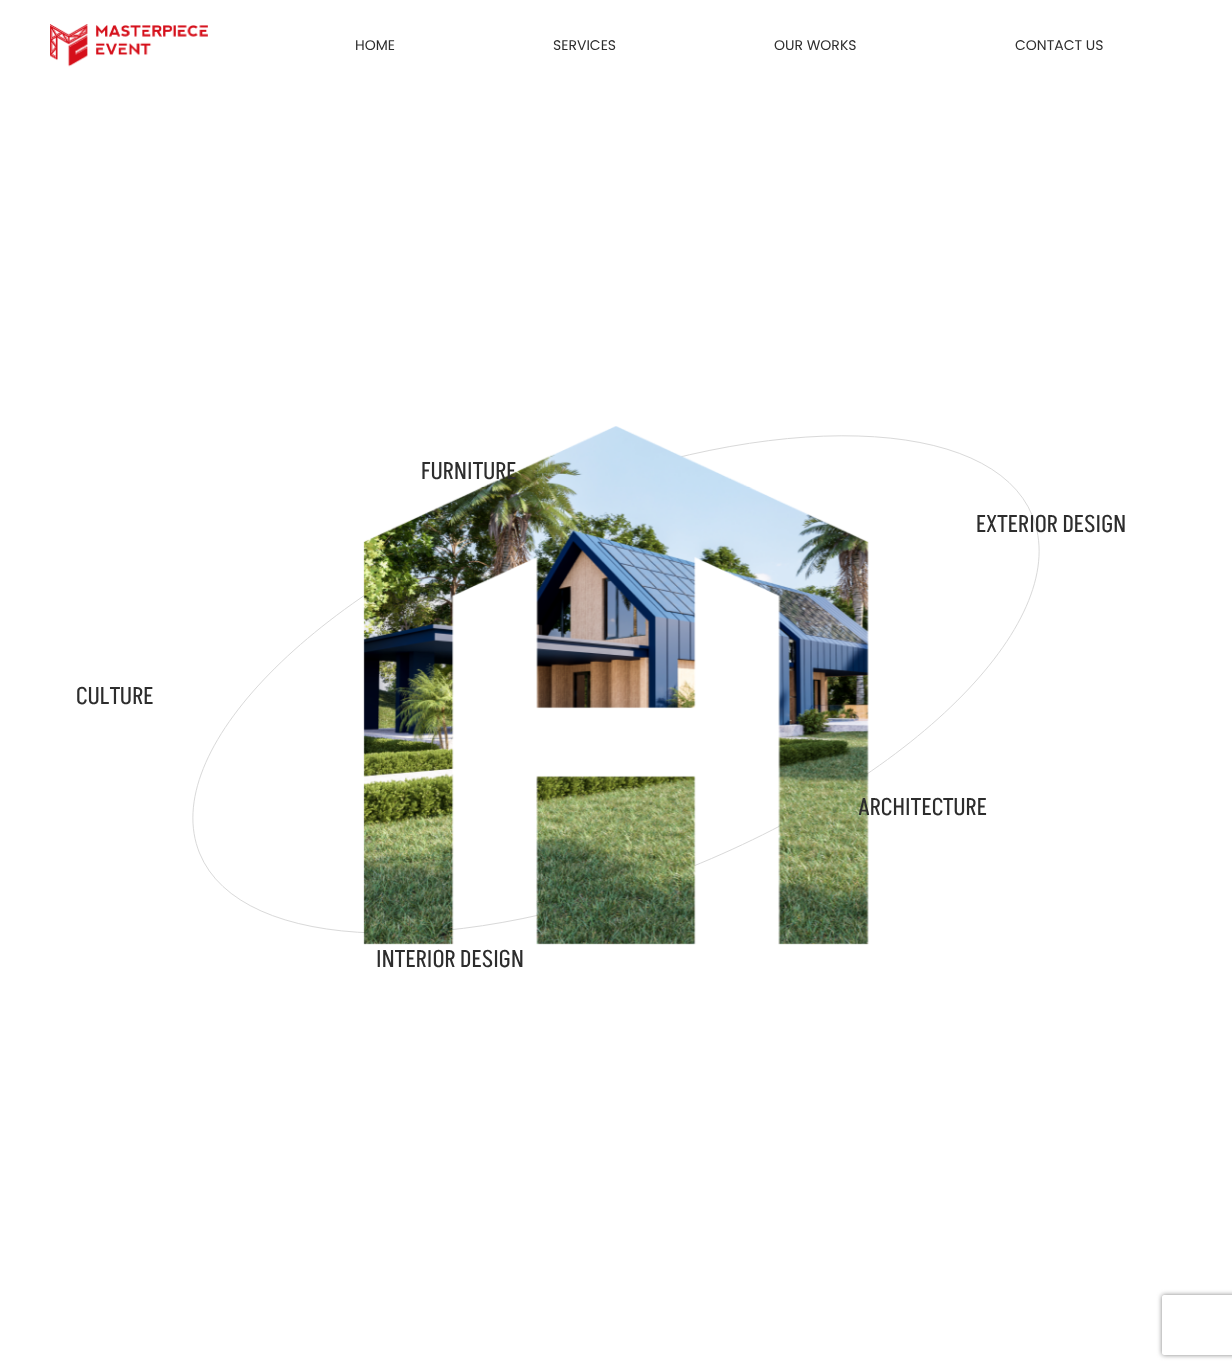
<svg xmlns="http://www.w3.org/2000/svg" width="1232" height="1369">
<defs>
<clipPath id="clip1"><path d="M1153 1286h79v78h-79zm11 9h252c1 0 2 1 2 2v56c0 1-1 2-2 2h-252c-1 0-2-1-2-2v-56c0-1 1-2 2-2z" clip-rule="evenodd"/></clipPath>
</defs>
<rect width="100%" height="100%" fill="#fff"/>
<image x="50" y="24" width="158" height="43" href="media/1.png"/>
<text x="355" y="50" style="font-family:Poppins;font-size:14px;fill:#2d2d2d">HOME</text>
<text x="553" y="50" style="font-family:Poppins;font-size:14px;fill:#2d2d2d">SERVICES</text>
<text x="774" y="50" style="font-family:Poppins;font-size:14px;fill:#2d2d2d">OUR WORKS</text>
<text x="1015" y="50" style="font-family:Poppins;font-size:14px;fill:#2d2d2d">CONTACT US</text>
<path d="M542 501.5c230-93 449.5-86.5 490.5 14.5c41 101.5-112.5 258.5-342.5 351.5c-230 93-449.5 86.5-490.5-14.5c-41-101.5 112.5-258.5 342.5-351.5z" fill="none" stroke="#d9d9d9"/>
<image x="363" y="426" width="506" height="519" href="media/2.png"/>
<text x="421" y="479" style="font-family:Akshar;font-size:24px;fill:#2d2d2d">FURNITURE</text>
<text x="976" y="532" style="font-family:Akshar;font-size:24px;fill:#2d2d2d">EXTERIOR DESIGN</text>
<text x="76" y="704" style="font-family:Akshar;font-size:24px;fill:#2d2d2d">CULTURE</text>
<text x="858" y="815" style="font-family:Akshar;font-size:24px;fill:#2d2d2d">ARCHITECTURE</text>
<text x="376" y="967" style="font-family:Akshar;font-size:24px;fill:#2d2d2d">INTERIOR DESIGN</text>
<g clip-path="url(#clip1)">
<rect x="1162" y="1295" width="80" height="60" rx="2" fill="#808080" filter="blur(2.5px)"/>
</g>
</svg>
